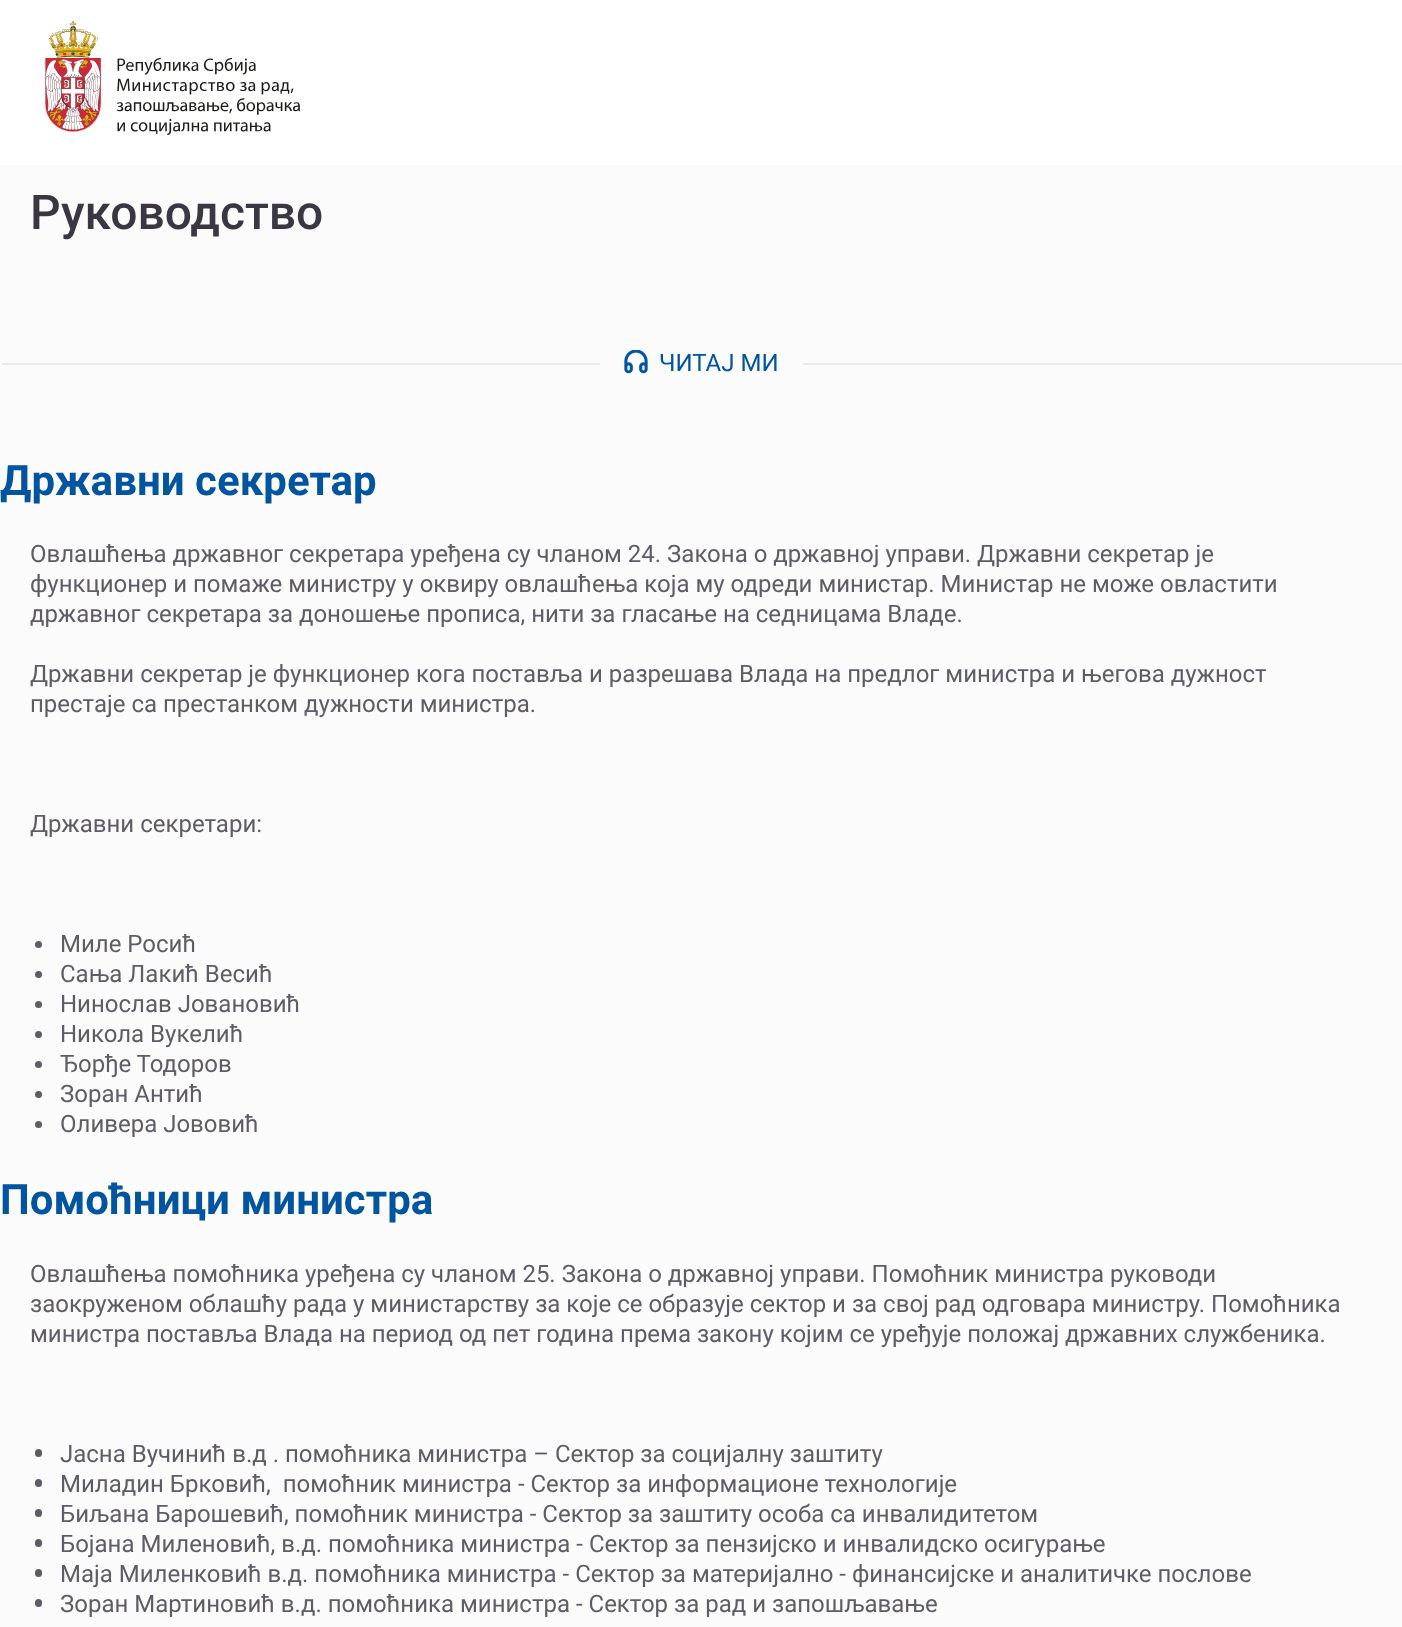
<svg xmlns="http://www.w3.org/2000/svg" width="1402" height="1627">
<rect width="100%" height="100%" fill="#fff"/>
<image x="45" y="21" width="255" height="114" href="media/1.png"/>
<rect y="165" width="1402" height="1462" fill="#fbfbfb"/>
<text x="30" y="229" style="font-family:Roboto;font-size:48px;font-weight:500;fill:#3a3742">Руководство</text>
<rect x="2" y="363" width="1400" height="2" fill="#eaeaea"/>
<rect x="600" y="363" width="203" height="2" fill="#fbfbfb"/>
<image x="624" y="350" width="24" height="24" href="media/2.png"/>
<text x="659" y="371" style="font-family:Roboto;font-size:24px;fill:#0154a0">ЧИТАЈ МИ</text>
<text x="0" y="495" style="font-family:Roboto;font-size:42px;font-weight:bold;fill:#0154a0">Државни секретар</text>
<text x="30" y="562" style="font-family:Roboto;font-size:24px;fill:#5f5c65">Овлашћења државног секретара уређена су чланом 24. Закона о државној управи. Државни секретар је</text>
<text x="30" y="592" style="font-family:Roboto;font-size:24px;fill:#5f5c65">функционер и помаже министру у оквиру овлашћења која му одреди министар. Министар не може овластити</text>
<text x="30" y="622" style="font-family:Roboto;font-size:24px;fill:#5f5c65">државног секретара за доношење прописа, нити за гласање на седницама Владе.</text>
<text x="30" y="682" style="font-family:Roboto;font-size:24px;fill:#5f5c65">Државни секретар је функционер кога поставља и разрешава Влада на предлог министра и његова дужност</text>
<text x="30" y="712" style="font-family:Roboto;font-size:24px;fill:#5f5c65">престаје сa престанком дужности министра.</text>
<text x="30" y="832" style="font-family:Roboto;font-size:24px;fill:#5f5c65">Државни секретари:</text>
<circle cx="38.5" cy="944.5" r="3.5" fill="#5f5c65"/>
<text x="60" y="952" style="font-family:Roboto;font-size:24px;fill:#5f5c65">Миле Росић</text>
<circle cx="38.5" cy="974.5" r="3.5" fill="#5f5c65"/>
<text x="60" y="982" style="font-family:Roboto;font-size:24px;fill:#5f5c65">Сања Лакић Весић</text>
<circle cx="38.5" cy="1004.5" r="3.5" fill="#5f5c65"/>
<text x="60" y="1012" style="font-family:Roboto;font-size:24px;fill:#5f5c65">Нинослав Јовановић</text>
<circle cx="38.5" cy="1034.5" r="3.5" fill="#5f5c65"/>
<text x="60" y="1042" style="font-family:Roboto;font-size:24px;fill:#5f5c65">Никола Вукелић</text>
<circle cx="38.5" cy="1064.5" r="3.5" fill="#5f5c65"/>
<text x="60" y="1072" style="font-family:Roboto;font-size:24px;fill:#5f5c65">Ђорђе Тодоров</text>
<circle cx="38.5" cy="1094.5" r="3.5" fill="#5f5c65"/>
<text x="60" y="1102" style="font-family:Roboto;font-size:24px;fill:#5f5c65">Зоран Антић</text>
<circle cx="38.5" cy="1124.5" r="3.5" fill="#5f5c65"/>
<text x="60" y="1132" style="font-family:Roboto;font-size:24px;fill:#5f5c65">Оливера Јововић</text>
<text x="0" y="1214" style="font-family:Roboto;font-size:42px;font-weight:bold;fill:#0154a0">Помоћници министра</text>
<text x="30" y="1282" style="font-family:Roboto;font-size:24px;fill:#5f5c65">Овлашћења помоћника уређена су чланом 25. Закона о државној управи. Помоћник министра руководи</text>
<text x="30" y="1312" style="font-family:Roboto;font-size:24px;fill:#5f5c65">заокруженом облашћу рада у министарству за које се образује сектор и за свој рад одговара министру. Помоћника</text>
<text x="30" y="1342" style="font-family:Roboto;font-size:24px;fill:#5f5c65">министра поставља Влада на период од пет година према закону којим се уређује положај државних службеника.</text>
<rect x="35" y="1449" width="7" height="8" rx="3.5" fill="#5f5c65"/>
<text x="60" y="1462" style="font-family:Roboto;font-size:24px;fill:#5f5c65">Јасна Вучинић в.д . помоћника министра – Сектор за социјалну заштиту</text>
<rect x="35" y="1479" width="7" height="8" rx="3.5" fill="#5f5c65"/>
<text x="60" y="1492" style="font-family:Roboto;font-size:24px;fill:#5f5c65" xml:space="preserve">Миладин Брковић,  помоћник министра - Сектор за информационе технологије</text>
<rect x="35" y="1509" width="7" height="8" rx="3.5" fill="#5f5c65"/>
<text x="60" y="1522" style="font-family:Roboto;font-size:24px;fill:#5f5c65">Биљана Барошевић, помоћник министра - Сектор за заштиту особа са инвалидитетом</text>
<rect x="35" y="1539" width="7" height="8" rx="3.5" fill="#5f5c65"/>
<text x="60" y="1552" style="font-family:Roboto;font-size:24px;fill:#5f5c65">Бојана Миленовић, в.д. помоћника министра - Сектор за пензијско и инвалидско осигурање</text>
<rect x="35" y="1569" width="7" height="8" rx="3.5" fill="#5f5c65"/>
<text x="60" y="1582" style="font-family:Roboto;font-size:24px;fill:#5f5c65">Маја Миленковић в.д. помоћника министра - Сектор за материјално - финансијске и аналитичке послове</text>
<rect x="35" y="1599" width="7" height="8" rx="3.5" fill="#5f5c65"/>
<text x="60" y="1612" style="font-family:Roboto;font-size:24px;fill:#5f5c65">Зоран Мартиновић в.д. помоћника министра - Сектор за рад и запошљавање</text>
</svg>
